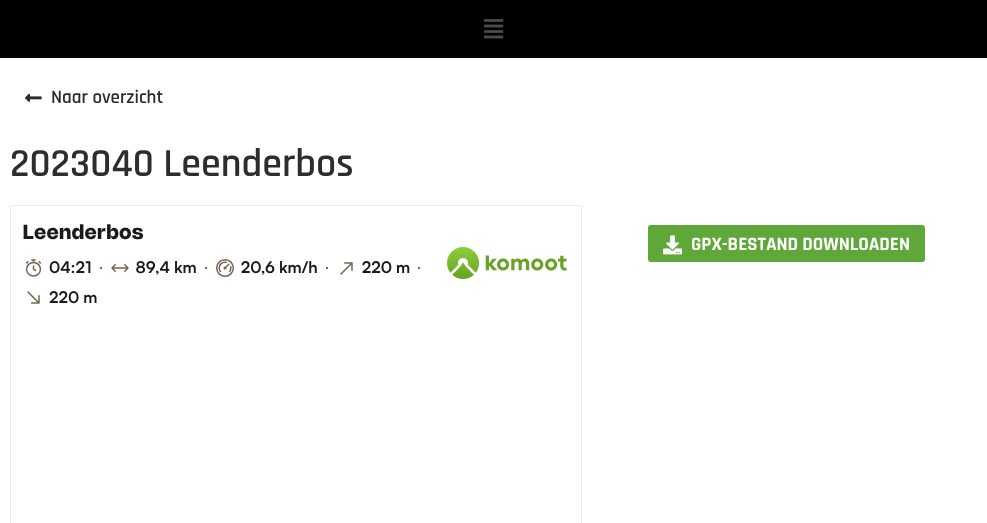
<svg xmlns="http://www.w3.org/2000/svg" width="987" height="523">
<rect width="100%" height="100%" fill="#fff"/>
<rect width="987" height="58" fill="#000"/>
<image x="484" y="19" width="20" height="20" href="media/1.png"/>
<image x="25" y="93" width="17" height="9" href="media/2.png"/>
<text x="51" y="103" style="font-family:Rajdhani;font-size:19px;font-weight:600;fill:#2d2d2d">Naar overzicht</text>
<text x="10" y="176" style="font-family:Rajdhani;font-size:40px;font-weight:600;fill:#2d2d2d">2023040 Leenderbos</text>
<image x="10" y="205" width="572" height="318" href="media/3.png"/>
<rect x="648" y="225" width="277" height="37" rx="3" fill="#5ea738"/>
<image x="663" y="235" width="19" height="20" href="media/4.png"/>
<text x="691" y="250" style="font-family:Rajdhani;font-size:19px;font-weight:bold;fill:#fff">GPX-BESTAND DOWNLOADEN</text>
</svg>
